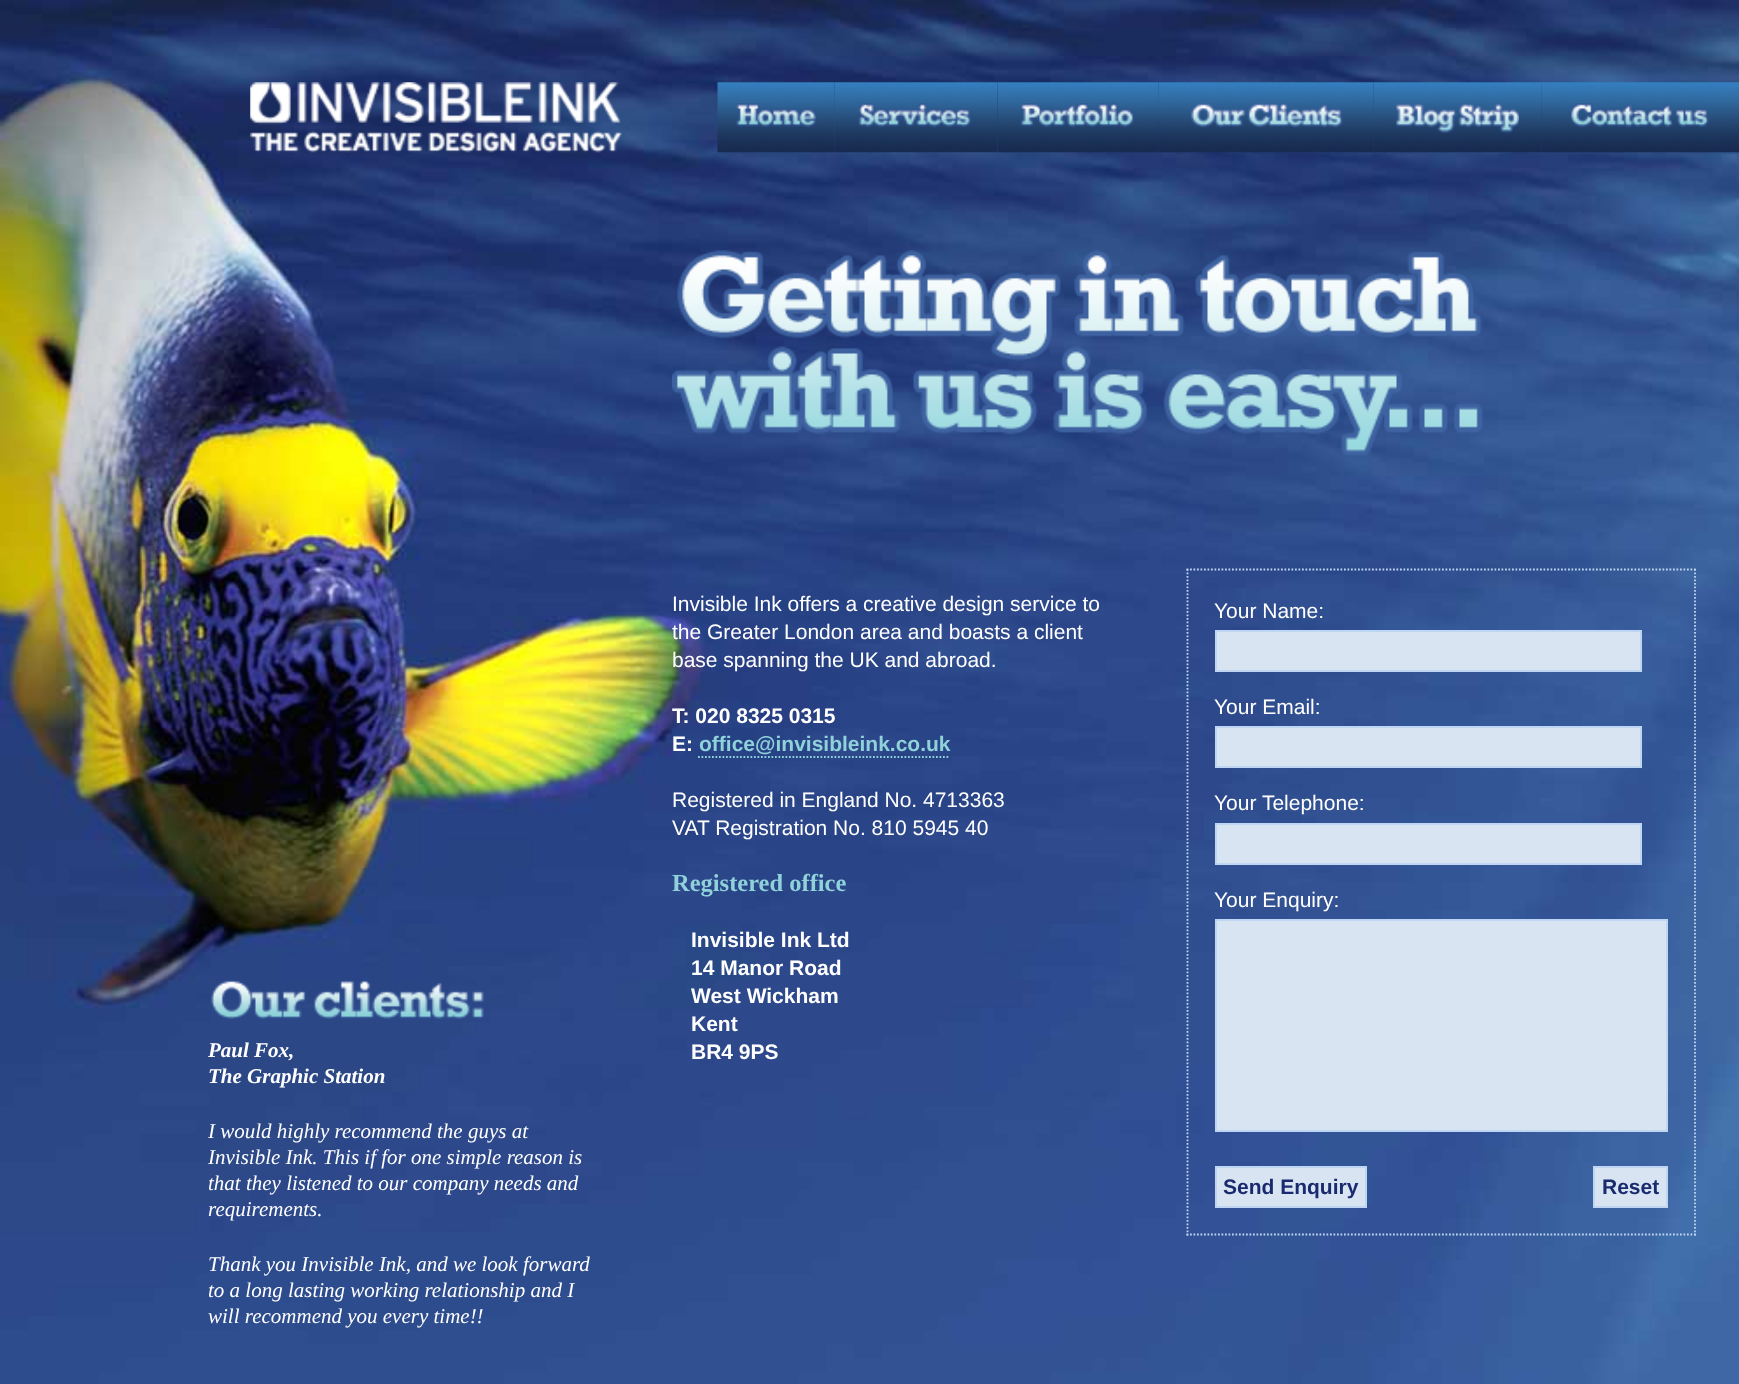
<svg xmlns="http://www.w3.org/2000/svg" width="1739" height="1384">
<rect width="100%" height="100%" fill="#fff"/>
<image x="0" y="0" width="1739" height="1384" href="media/1.png"/>
<image x="250" y="82" width="372" height="71" href="media/2.png"/>
<image x="717" y="82" width="118" height="71" href="media/3.png"/>
<image x="735" y="103" width="82" height="25" href="media/4.png"/>
<image x="834" y="82" width="164" height="71" href="media/5.png"/>
<image x="858" y="103" width="114" height="25" href="media/6.png"/>
<image x="997" y="82" width="162" height="71" href="media/7.png"/>
<image x="1020" y="103" width="115" height="25" href="media/8.png"/>
<image x="1158" y="82" width="216" height="71" href="media/9.png"/>
<image x="1190" y="103" width="153" height="25" href="media/10.png"/>
<image x="1373" y="82" width="169" height="71" href="media/11.png"/>
<image x="1396" y="103" width="123" height="31" href="media/12.png"/>
<image x="1541" y="82" width="198" height="71" href="media/13.png"/>
<image x="1570" y="103" width="139" height="25" href="media/14.png"/>
<image x="672" y="250" width="811" height="206" href="media/15.png"/>
<image x="210" y="980" width="274" height="39" href="media/16.png"/>
<text x="208" y="1057" style="font-family:Liberation Serif;font-size:21px;font-weight:bold;font-style:italic;fill:#fff">Paul Fox,</text>
<text x="208" y="1083" style="font-family:Liberation Serif;font-size:21px;font-weight:bold;font-style:italic;fill:#fff">The Graphic Station</text>
<text x="208" y="1138" style="font-family:Liberation Serif;font-size:21px;font-style:italic;fill:#fff">I would highly recommend the guys at</text>
<text x="208" y="1164" style="font-family:Liberation Serif;font-size:21px;font-style:italic;fill:#fff">Invisible Ink. This if for one simple reason is</text>
<text x="208" y="1190" style="font-family:Liberation Serif;font-size:21px;font-style:italic;fill:#fff">that they listened to our company needs and</text>
<text x="208" y="1216" style="font-family:Liberation Serif;font-size:21px;font-style:italic;fill:#fff">requirements.</text>
<text x="208" y="1271" style="font-family:Liberation Serif;font-size:21px;font-style:italic;fill:#fff">Thank you Invisible Ink, and we look forward</text>
<text x="208" y="1297" style="font-family:Liberation Serif;font-size:21px;font-style:italic;fill:#fff">to a long lasting working relationship and I</text>
<text x="208" y="1323" style="font-family:Liberation Serif;font-size:21px;font-style:italic;fill:#fff">will recommend you every time!!</text>
<text x="672" y="611" style="font-family:Liberation Sans;font-size:21px;fill:#fff">Invisible Ink offers a creative design service to</text>
<text x="672" y="639" style="font-family:Liberation Sans;font-size:21px;fill:#fff">the Greater London area and boasts a client</text>
<text x="672" y="667" style="font-family:Liberation Sans;font-size:21px;fill:#fff">base spanning the UK and abroad.</text>
<text x="672" y="723" style="font-family:Liberation Sans;font-size:21px;font-weight:bold;fill:#fff">T: 020 8325 0315</text>
<text x="672" y="751" style="font-family:Liberation Sans;font-size:21px;font-weight:bold;fill:#fff">E:</text>
<text x="699" y="751" style="font-family:Liberation Sans;font-size:21px;font-weight:bold;fill:#8fd2da">office@invisibleink.co.uk</text>
<path d="M698 757h252" fill="none" stroke="#8fd2da" stroke-width="1.8" stroke-dasharray="1.75 1.75"/>
<text x="672" y="807" style="font-family:Liberation Sans;font-size:21px;fill:#fff">Registered in England No. 4713363</text>
<text x="672" y="835" style="font-family:Liberation Sans;font-size:21px;fill:#fff">VAT Registration No. 810 5945 40</text>
<text x="672" y="891" style="font-family:Liberation Serif;font-size:24.5px;font-weight:bold;fill:#8fd2da">Registered office</text>
<text x="691" y="947" style="font-family:Liberation Sans;font-size:21px;font-weight:bold;fill:#fff">Invisible Ink Ltd</text>
<text x="691" y="975" style="font-family:Liberation Sans;font-size:21px;font-weight:bold;fill:#fff">14 Manor Road</text>
<text x="691" y="1003" style="font-family:Liberation Sans;font-size:21px;font-weight:bold;fill:#fff">West Wickham</text>
<text x="691" y="1031" style="font-family:Liberation Sans;font-size:21px;font-weight:bold;fill:#fff">Kent</text>
<text x="691" y="1059" style="font-family:Liberation Sans;font-size:21px;font-weight:bold;fill:#fff">BR4 9PS</text>
<path d="M1186.5 569.5h509.5" fill="none" stroke="#bed6f1" stroke-width="1.8" stroke-dasharray="1.75 1.75"/>
<path d="M1695 569v666.5" fill="none" stroke="#bed6f1" stroke-width="1.8" stroke-dasharray="1.75 1.75"/>
<path d="M1186.5 1234.5h509.5" fill="none" stroke="#bed6f1" stroke-width="1.8" stroke-dasharray="1.75 1.75"/>
<path d="M1187.5 569v666.5" fill="none" stroke="#bed6f1" stroke-width="1.8" stroke-dasharray="1.75 1.75"/>
<text x="1214" y="618" style="font-family:Liberation Sans;font-size:21px;fill:#fff">Your Name:</text>
<rect x="1216" y="631" width="425" height="40" fill="#d8e4f1" stroke="#bed6f1" stroke-width="2"/>
<text x="1214" y="714" style="font-family:Liberation Sans;font-size:21px;fill:#fff">Your Email:</text>
<rect x="1216" y="727" width="425" height="40" fill="#d8e4f1" stroke="#bed6f1" stroke-width="2"/>
<text x="1214" y="810" style="font-family:Liberation Sans;font-size:21px;fill:#fff">Your Telephone:</text>
<rect x="1216" y="824" width="425" height="40" fill="#d8e4f1" stroke="#bed6f1" stroke-width="2"/>
<text x="1214" y="907" style="font-family:Liberation Sans;font-size:21px;fill:#fff">Your Enquiry:</text>
<rect x="1216" y="920" width="451" height="211" fill="#d8e4f1" stroke="#bed6f1" stroke-width="2"/>
<rect x="1216" y="1167" width="150" height="40" fill="#d8e4f1" stroke="#bed6f1" stroke-width="2"/>
<text x="1223" y="1194" style="font-family:Liberation Sans;font-size:21px;font-weight:bold;fill:#192b6e">Send Enquiry</text>
<rect x="1594" y="1167" width="73" height="40" fill="#d8e4f1" stroke="#bed6f1" stroke-width="2"/>
<text x="1602" y="1194" style="font-family:Liberation Sans;font-size:21px;font-weight:bold;fill:#192b6e">Reset</text>
</svg>
